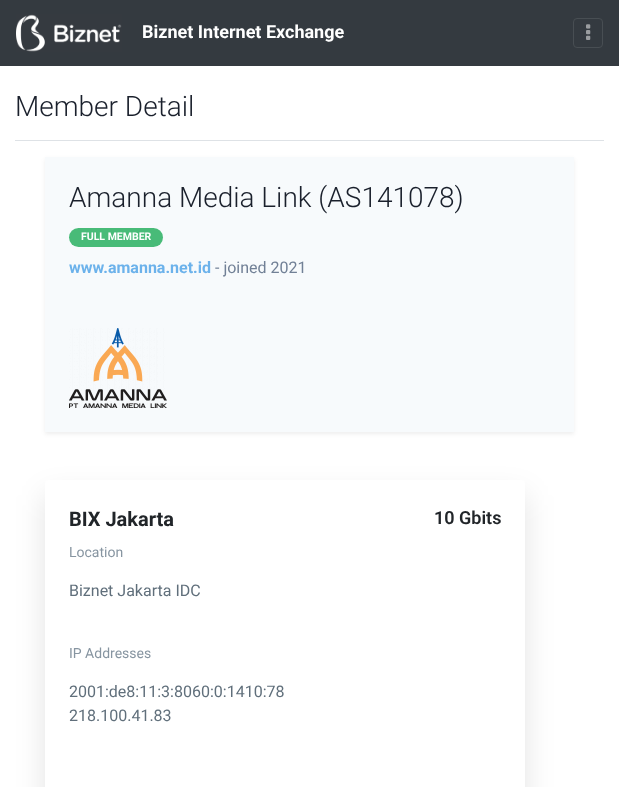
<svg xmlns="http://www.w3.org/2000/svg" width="619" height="787">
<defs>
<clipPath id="clip1"><path d="M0 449h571v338h-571zm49 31h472c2 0 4 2 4 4v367c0 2-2 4-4 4h-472c-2 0-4-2-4-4v-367c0-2 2-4 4-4z" clip-rule="evenodd"/></clipPath>
</defs>
<rect width="100%" height="100%" fill="#fff"/>
<rect width="619" height="66" fill="#343a40"/>
<image x="16" y="14" width="106" height="38" href="media/1.png"/>
<text x="142" y="38" style="font-family:Roboto;font-size:18px;font-weight:bold;fill:#fff">Biznet Internet Exchange</text>
<rect x="573.5" y="18.5" width="29" height="29" rx="3.5" fill="none" stroke="#484e53"/>
<image x="586" y="24" width="5" height="16" href="media/2.png"/>
<rect x="15" y="140" width="589" height="1" fill="#dee2e6"/>
<text x="15" y="116" style="font-family:Roboto;font-size:28px;font-weight:300;fill:#1a202c">Member Detail</text>
<rect x="45" y="159" width="529" height="275" fill="#00000012" filter="blur(2px)"/>
<rect x="45" y="157" width="529" height="275" fill="#f7fafc"/>
<text x="69" y="207" style="font-family:Roboto;font-size:28px;font-weight:300;fill:#1a202c">Amanna Media Link (AS141078)</text>
<rect x="69" y="228" width="94" height="19" rx="9.5" fill="#48bb78"/>
<text x="81" y="240" style="font-family:Roboto;font-size:10.5px;font-weight:bold;fill:#fff">FULL MEMBER</text>
<text x="69" y="273" style="font-family:Roboto;font-size:16px;font-weight:bold;fill:#6cb2eb">www.amanna.net.id</text>
<text x="215" y="273" style="font-family:Roboto;font-size:16px;fill:#718096">- joined 2021</text>
<image x="69" y="328" width="98" height="80" href="media/3.png"/>
<g clip-path="url(#clip1)">
<rect x="45" y="495" width="480" height="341" rx="4" fill="#0000001c" filter="blur(15px)"/>
</g>
<text x="69" y="526" style="font-family:Roboto;font-size:20px;font-weight:bold;fill:#212529">BIX Jakarta</text>
<text x="434" y="524" style="font-family:Roboto;font-size:18px;font-weight:600;fill:#212529">10 Gbits</text>
<text x="69" y="557" style="font-family:Roboto;font-size:14px;fill:#8795a1">Location</text>
<text x="69" y="596" style="font-family:Roboto;font-size:16px;fill:#606f7b">Biznet Jakarta IDC</text>
<text x="69" y="658" style="font-family:Roboto;font-size:14px;fill:#8795a1">IP Addresses</text>
<text x="69" y="697" style="font-family:Roboto;font-size:16px;fill:#606f7b">2001:de8:11:3:8060:0:1410:78</text>
<text x="69" y="721" style="font-family:Roboto;font-size:16px;fill:#606f7b">218.100.41.83</text>
</svg>
